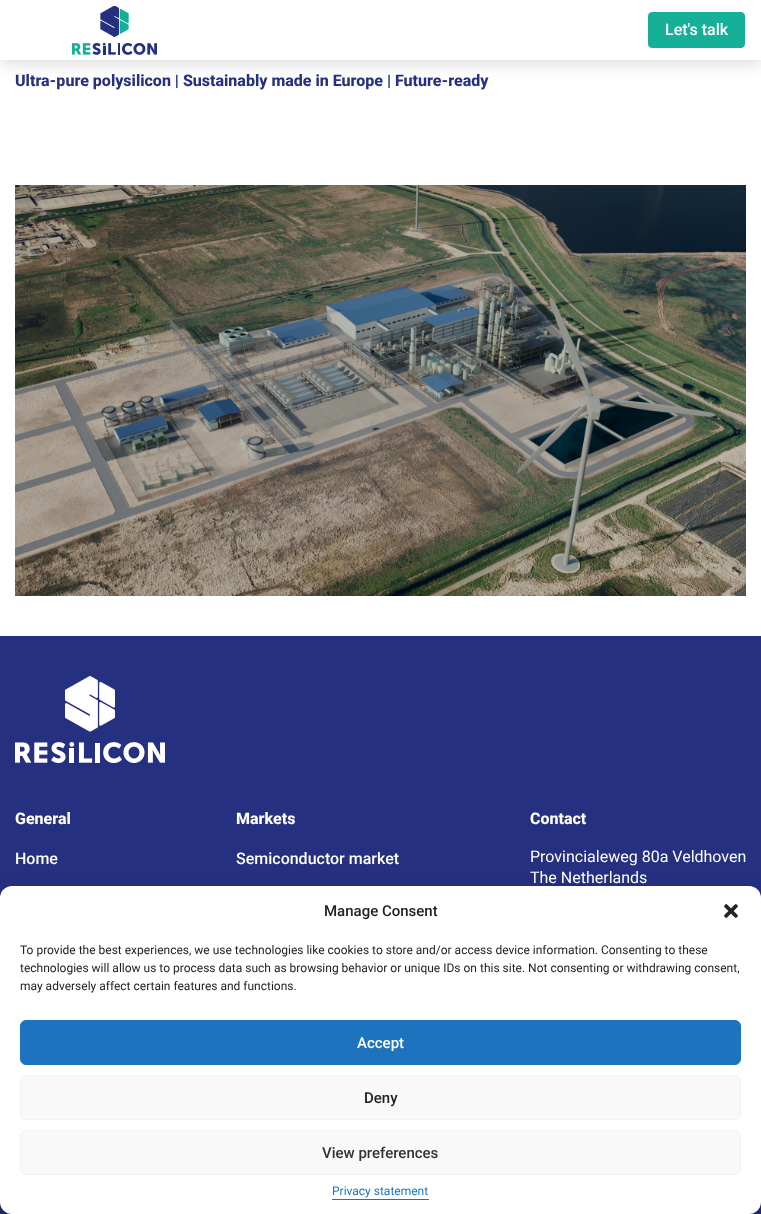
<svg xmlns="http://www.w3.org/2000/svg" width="761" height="1214">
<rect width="100%" height="100%" fill="#fff"/>
<rect width="761" height="60" fill="#00000033" filter="blur(10px)"/>
<rect width="761" height="60" fill="#fff"/>
<image x="72" y="6" width="85" height="49" href="media/1.png"/>
<rect x="648.5" y="12.5" width="96" height="35" rx="3.5" fill="#16af98" stroke="#16af98"/>
<text x="665" y="35" style="font-family:Roboto;font-size:16px;font-weight:500;fill:#fff">Let's talk</text>
<text x="15" y="86" style="font-family:Roboto;font-size:16px;font-weight:800;fill:#253081">Ultra-pure polysilicon | Sustainably made in Europe | Future-ready</text>
<image x="15" y="185" width="731" height="411" href="media/2.png"/>
<rect y="636" width="761" height="262" fill="#253081"/>
<image x="15" y="676" width="150" height="87" href="media/3.png"/>
<text x="15" y="824" style="font-family:Roboto;font-size:16px;font-weight:800;fill:#fff">General</text>
<text x="15" y="864" style="font-family:Roboto;font-size:16px;font-weight:500;fill:#fff">Home</text>
<text x="236" y="824" style="font-family:Roboto;font-size:16px;font-weight:800;fill:#fff">Markets</text>
<text x="236" y="864" style="font-family:Roboto;font-size:16px;font-weight:500;fill:#fff">Semiconductor market</text>
<text x="530" y="824" style="font-family:Roboto;font-size:16px;font-weight:800;fill:#fff">Contact</text>
<text x="530" y="862" style="font-family:Roboto;font-size:16px;fill:#fff">Provincialeweg 80a Veldhoven</text>
<text x="530" y="883" style="font-family:Roboto;font-size:16px;fill:#fff">The Netherlands</text>
<rect y="1202" width="761" height="12" fill="#253081"/>
<rect y="892" width="761" height="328" rx="12" fill="#0000003b" filter="blur(3px)"/>
<rect y="896" width="761" height="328" rx="12" fill="#00000030" filter="blur(10px)"/>
<rect y="886" width="761" height="328" rx="12" fill="#fff"/>
<text x="324" y="916" style="font-family:Roboto;font-size:15px;font-weight:500;fill:#222">Manage Consent</text>
<image x="724" y="904" width="14" height="14" href="media/4.png"/>
<text x="20" y="954" style="font-family:Roboto;font-size:12px;fill:#222">To provide the best experiences, we use technologies like cookies to store and/or access device information. Consenting to these</text>
<text x="20" y="972" style="font-family:Roboto;font-size:12px;fill:#222">technologies will allow us to process data such as browsing behavior or unique IDs on this site. Not consenting or withdrawing consent,</text>
<text x="20" y="990" style="font-family:Roboto;font-size:12px;fill:#222">may adversely affect certain features and functions.</text>
<rect x="20.5" y="1020.5" width="720" height="44" rx="5.5" fill="#1e73be" stroke="#1e73be"/>
<text x="357" y="1048" style="font-family:Roboto;font-size:15px;font-weight:500;fill:#fff">Accept</text>
<rect x="20.5" y="1075.5" width="720" height="44" rx="5.5" fill="#f9f9f9" stroke="#f2f2f2"/>
<text x="364" y="1103" style="font-family:Roboto;font-size:15px;font-weight:500;fill:#222">Deny</text>
<rect x="20.5" y="1130.5" width="720" height="44" rx="5.5" fill="#f9f9f9" stroke="#f2f2f2"/>
<text x="322" y="1158" style="font-family:Roboto;font-size:15px;font-weight:500;fill:#333">View preferences</text>
<text x="332" y="1195" style="font-family:Roboto;font-size:12px;fill:#1e73be">Privacy statement</text>
<rect x="332" y="1199" width="97" height="1" fill="#1e73be"/>
</svg>
